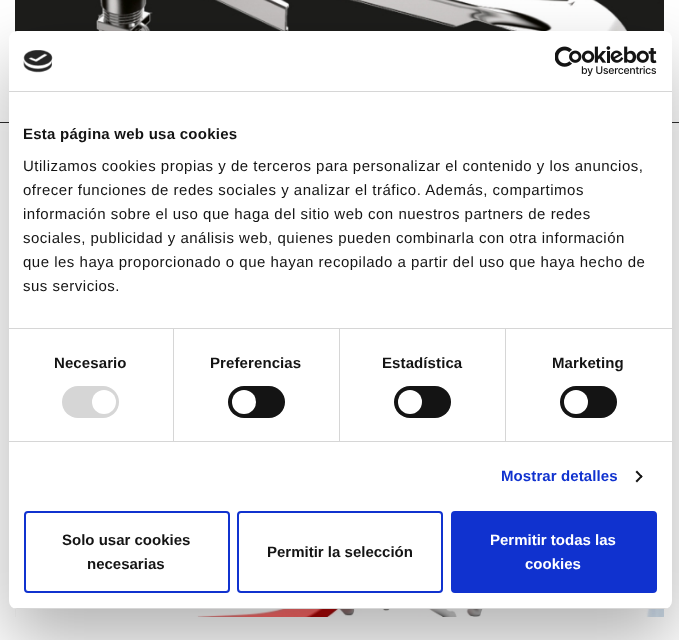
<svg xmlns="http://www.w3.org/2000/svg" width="679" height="640">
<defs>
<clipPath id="clip1"><rect x="9" y="31" width="663" height="578" rx="8"/></clipPath>
</defs>
<rect width="100%" height="100%" fill="#fff"/>
<image x="15" y="0" width="649" height="32" href="media/1.png"/>
<rect y="122" width="679" height="1" fill="#2d2d2d"/>
<image x="15" y="608" width="649" height="9" href="media/2.png"/>
<rect x="9" y="63" width="663" height="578" rx="8" fill="#0000004d" filter="blur(34px)"/>
<rect x="9" y="31" width="663" height="578" rx="8" fill="#fff"/>
<rect x="9" y="91" width="663" height="1" fill="#d6d6d6"/>
<image x="23" y="50" width="30" height="23" href="media/3.png"/>
<image x="555" y="46" width="102" height="30" href="media/4.png"/>
<rect x="9" y="328" width="663" height="1" fill="#d6d6d6"/>
<text x="23" y="139" style="font-family:Liberation Sans;font-size:15px;font-weight:bold;letter-spacing:0.25px;fill:#141414">Esta página web usa cookies</text>
<text x="23" y="171" style="font-family:Liberation Sans;font-size:15px;letter-spacing:0.5px;fill:#141414">Utilizamos cookies propias y de terceros para personalizar el contenido y los anuncios,</text>
<text x="23" y="195" style="font-family:Liberation Sans;font-size:15px;letter-spacing:0.5px;fill:#141414">ofrecer funciones de redes sociales y analizar el tráfico. Además, compartimos</text>
<text x="23" y="219" style="font-family:Liberation Sans;font-size:15px;letter-spacing:0.5px;fill:#141414">información sobre el uso que haga del sitio web con nuestros partners de redes</text>
<text x="23" y="243" style="font-family:Liberation Sans;font-size:15px;letter-spacing:0.5px;fill:#141414">sociales, publicidad y análisis web, quienes pueden combinarla con otra información</text>
<text x="23" y="267" style="font-family:Liberation Sans;font-size:15px;letter-spacing:0.5px;fill:#141414">que les haya proporcionado o que hayan recopilado a partir del uso que haya hecho de</text>
<text x="23" y="291" style="font-family:Liberation Sans;font-size:15px;letter-spacing:0.5px;fill:#141414">sus servicios.</text>
<rect x="9" y="441" width="663" height="1" fill="#d6d6d6"/>
<rect x="173" y="329" width="1" height="112" fill="#d6d6d6"/>
<text x="54" y="368" style="font-family:Liberation Sans;font-size:15px;font-weight:bold;letter-spacing:0.1px;fill:#141414">Necesario</text>
<rect x="62" y="386" width="57" height="32" rx="16" fill="#d6d6d6"/>
<circle cx="104" cy="402" r="12" fill="#fff"/>
<rect x="339" y="329" width="1" height="112" fill="#d6d6d6"/>
<text x="210" y="368" style="font-family:Liberation Sans;font-size:15px;font-weight:bold;letter-spacing:0.1px;fill:#141414">Preferencias</text>
<rect x="228" y="386" width="57" height="32" rx="16" fill="#141414"/>
<circle cx="244" cy="402" r="12" fill="#fff"/>
<rect x="505" y="329" width="1" height="112" fill="#d6d6d6"/>
<text x="382" y="368" style="font-family:Liberation Sans;font-size:15px;font-weight:bold;letter-spacing:0.1px;fill:#141414">Estadística</text>
<rect x="394" y="386" width="57" height="32" rx="16" fill="#141414"/>
<circle cx="410" cy="402" r="12" fill="#fff"/>
<text x="552" y="368" style="font-family:Liberation Sans;font-size:15px;font-weight:bold;letter-spacing:0.1px;fill:#141414">Marketing</text>
<rect x="560" y="386" width="57" height="32" rx="16" fill="#141414"/>
<circle cx="576" cy="402" r="12" fill="#fff"/>
<text x="501" y="481" style="font-family:Liberation Sans;font-size:15px;font-weight:bold;letter-spacing:0.1px;fill:#1032cf">Mostrar detalles</text>
<path d="M637 470.5l5.5 6l-1 1.5l-6-6z" fill="#141414"/>
<path d="M641.5 475l1 1.5l-5.5 6l-1.5-1.5z" fill="#141414"/>
<g clip-path="url(#clip1)">
<rect x="9" y="608" width="663" height="1" fill="#d6d6d6"/>
</g>
<rect x="25" y="512" width="204" height="80" rx="3" fill="none" stroke="#1032cf" stroke-width="2"/>
<text x="62" y="545" style="font-family:Liberation Sans;font-size:15px;font-weight:bold;fill:#141414">Solo usar cookies</text>
<text x="87" y="569" style="font-family:Liberation Sans;font-size:15px;font-weight:bold;fill:#141414">necesarias</text>
<rect x="238" y="512" width="204" height="80" rx="3" fill="none" stroke="#1032cf" stroke-width="2"/>
<text x="267" y="557" style="font-family:Liberation Sans;font-size:15px;font-weight:bold;fill:#141414">Permitir la selección</text>
<rect x="452" y="512" width="204" height="80" rx="3" fill="#1032cf" stroke="#1032cf" stroke-width="2"/>
<text x="490" y="545" style="font-family:Liberation Sans;font-size:15px;font-weight:bold;fill:#fff">Permitir todas las</text>
<text x="525" y="569" style="font-family:Liberation Sans;font-size:15px;font-weight:bold;fill:#fff">cookies</text>
</svg>
